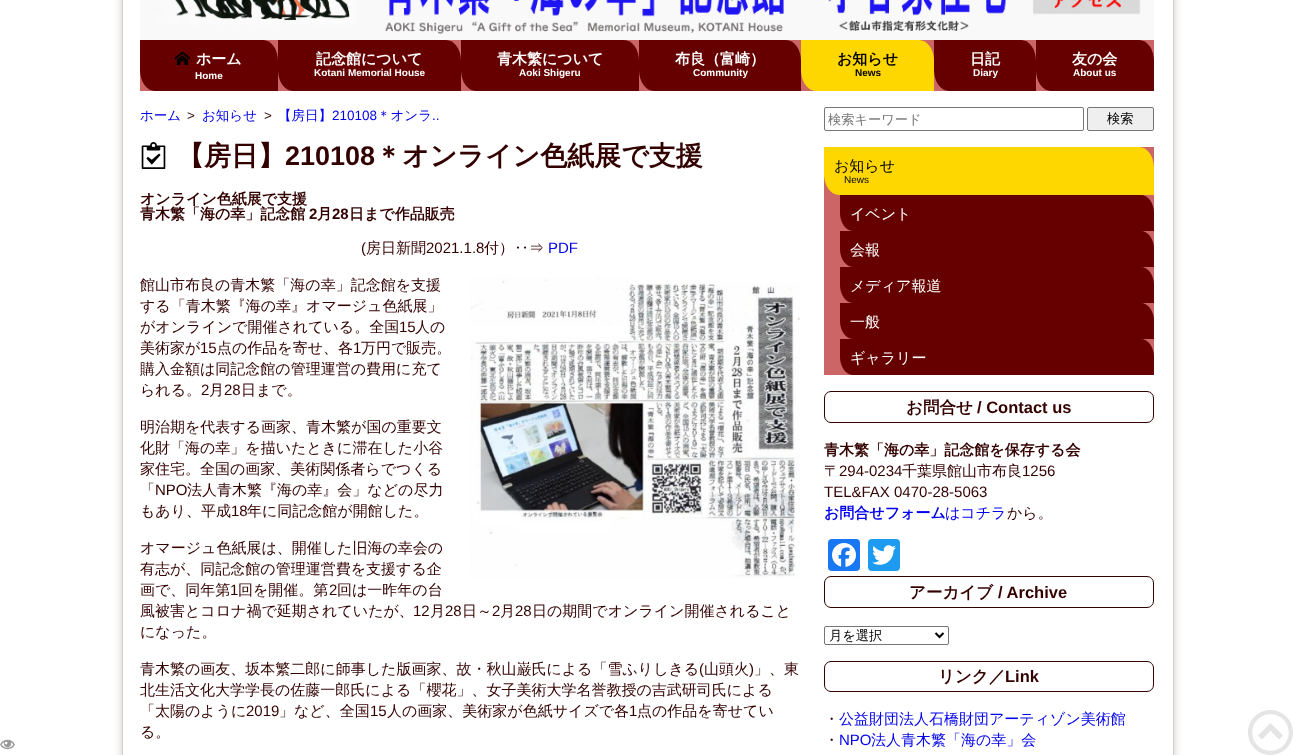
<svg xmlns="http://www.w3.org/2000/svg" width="1293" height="755">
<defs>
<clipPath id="clip1"><path d="M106 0h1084v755h-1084zm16-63h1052v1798h-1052z" clip-rule="evenodd"/></clipPath>
</defs>
<rect width="100%" height="100%" fill="#fff"/>
<image x="140" y="0" width="1014" height="40" href="media/1.png"/>
<image x="141" y="142" width="25" height="27" href="media/4.png"/>
<image x="470" y="277" width="330" height="301" href="media/5.png"/>
<rect x="824.5" y="107.5" width="259" height="23" rx="1.5" fill="none" stroke="#767676"/>
<rect x="1087.5" y="107.5" width="66" height="23" rx="1.5" fill="#efefef" stroke="#767676"/>
<rect x="824" y="147" width="330" height="228" fill="#c66"/>
<path d="M824 147h315c8 0 15 9 15 21v27h-315c-8 0-15-9-15-21z" fill="#ffd700"/>
<path d="M840 195h301c7 0 13 8 13 18v18h-301c-7 0-13-8-13-18z" fill="#600"/>
<path d="M840 231h301c7 0 13 8 13 18v18h-301c-7 0-13-8-13-18z" fill="#600"/>
<path d="M840 267h301c7 0 13 8 13 18v18h-301c-7 0-13-8-13-18z" fill="#600"/>
<path d="M840 303h301c7 0 13 8 13 18v18h-301c-7 0-13-8-13-18z" fill="#600"/>
<path d="M840 339h301c7 0 13 8 13 18v18h-301c-7 0-13-8-13-18z" fill="#600"/>
<rect x="824.5" y="391.5" width="329" height="31" rx="6.5" fill="none" stroke="#300"/>
<rect x="828" y="539" width="32" height="32" rx="4" fill="#1877f2"/>
<rect x="868" y="539" width="32" height="32" rx="4" fill="#1d9bf0"/>
<rect x="824.5" y="576.5" width="329" height="31" rx="6.5" fill="none" stroke="#300"/>
<rect x="824.5" y="626.5" width="124" height="18" rx="1.5" fill="none" stroke="#767676"/>
<path d="M935.5 633l4 4l4-4" fill="none" stroke="#000" stroke-width="2"/>
<rect x="824.5" y="661.5" width="329" height="30" rx="6.5" fill="none" stroke="#300"/>
<g clip-path="url(#clip1)">
<rect x="122" y="-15" width="1052" height="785" fill="#d6cccc" filter="blur(5px)"/>
</g>
<rect x="122.5" y="-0.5" width="1051" height="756" fill="none" stroke="#d6cccc"/>
<rect x="140" y="40" width="1014" height="51" fill="#c66"/>
<path d="M140 40h123c8 0 15 9 15 21v30h-123c-8 0-15-9-15-21z" fill="#600"/>
<image x="175" y="51" width="15" height="14" href="media/2.png"/>
<text x="196" y="64" style="font-family:WenQuanYi Zen Hei;font-size:15px;font-weight:bold;fill:#fff">ホーム</text>
<text x="195" y="79" style="font-family:Liberation Sans;font-size:10px;font-weight:bold;fill:#fff">Home</text>
<path d="M278 40h168c8 0 15 9 15 21v30h-168c-8 0-15-9-15-21z" fill="#600"/>
<text x="316" y="64" style="font-family:WenQuanYi Zen Hei;font-size:15px;font-weight:bold;fill:#fff">記念館について</text>
<text x="314" y="76" style="font-family:Liberation Sans;font-size:10px;font-weight:bold;fill:#fff">Kotani Memorial House</text>
<path d="M461 40h163c8 0 15 9 15 21v30h-163c-8 0-15-9-15-21z" fill="#600"/>
<text x="497" y="64" style="font-family:WenQuanYi Zen Hei;font-size:15px;font-weight:bold;fill:#fff">青木繁について</text>
<text x="519" y="76" style="font-family:Liberation Sans;font-size:10px;font-weight:bold;fill:#fff">Aoki Shigeru</text>
<path d="M639 40h147c8 0 15 9 15 21v30h-147c-8 0-15-9-15-21z" fill="#600"/>
<text x="675" y="64" style="font-family:WenQuanYi Zen Hei;font-size:15px;font-weight:bold;fill:#fff">布良（富崎）</text>
<text x="693" y="76" style="font-family:Liberation Sans;font-size:10px;font-weight:bold;fill:#fff">Community</text>
<path d="M801 40h118c8 0 15 9 15 21v30h-118c-8 0-15-9-15-21z" fill="#ffd700"/>
<text x="837" y="64" style="font-family:WenQuanYi Zen Hei;font-size:15px;font-weight:bold;fill:#000">お知らせ</text>
<text x="855" y="76" style="font-family:Liberation Sans;font-size:10px;font-weight:bold;fill:#000">News</text>
<path d="M934 40h87c8 0 15 9 15 21v30h-87c-8 0-15-9-15-21z" fill="#600"/>
<text x="970" y="64" style="font-family:WenQuanYi Zen Hei;font-size:15px;font-weight:bold;fill:#fff">日記</text>
<text x="973" y="76" style="font-family:Liberation Sans;font-size:10px;font-weight:bold;fill:#fff">Diary</text>
<path d="M1036 40h103c8 0 15 9 15 21v30h-103c-8 0-15-9-15-21z" fill="#600"/>
<text x="1072" y="64" style="font-family:WenQuanYi Zen Hei;font-size:15px;font-weight:bold;fill:#fff">友の会</text>
<text x="1073" y="76" style="font-family:Liberation Sans;font-size:10px;font-weight:bold;fill:#fff">About us</text>
<image x="0" y="739" width="15" height="11" href="media/3.png"/>
<text x="140" y="120" style="font-family:WenQuanYi Zen Hei;font-size:13.5px;font-weight:500;fill:#00e">ホーム</text>
<text x="187" y="120" style="font-family:Liberation Sans;font-size:13.5px;fill:#300">&gt;</text>
<text x="202" y="120" style="font-family:WenQuanYi Zen Hei;font-size:13.5px;font-weight:500;fill:#00e">お知らせ</text>
<text x="264" y="120" style="font-family:Liberation Sans;font-size:13.5px;fill:#300">&gt;</text>
<text x="278" y="120" style="font-family:WenQuanYi Zen Hei;font-size:13.5px;font-weight:500;fill:#00e">【房日】</text>
<text x="332" y="120" style="font-family:Liberation Sans;font-size:13.5px;fill:#00e">210108</text>
<text x="377" y="120" style="font-family:WenQuanYi Zen Hei;font-size:13.5px;font-weight:500;fill:#00e">＊オンラ</text>
<text x="432" y="120" style="font-family:Liberation Sans;font-size:13.5px;fill:#00e">..</text>
<text x="177" y="165" style="font-family:WenQuanYi Zen Hei;font-size:27px;font-weight:bold;fill:#300">【房日】</text>
<text x="285" y="165" style="font-family:Liberation Sans;font-size:27px;font-weight:bold;fill:#300">210108</text>
<text x="375" y="165" style="font-family:WenQuanYi Zen Hei;font-size:27px;font-weight:bold;fill:#300">＊オンライン色紙展で支援</text>
<text x="140" y="204" style="font-family:WenQuanYi Zen Hei;font-size:15px;font-weight:bold;fill:#300">オンライン色紙展で支援</text>
<text x="140" y="219" style="font-family:WenQuanYi Zen Hei;font-size:15px;font-weight:bold;fill:#300">青木繁「海の幸」記念館</text>
<text x="309" y="219" style="font-family:Liberation Sans;font-size:15px;font-weight:bold;fill:#300">2</text>
<text x="317" y="219" style="font-family:WenQuanYi Zen Hei;font-size:15px;font-weight:bold;fill:#300">月</text>
<text x="332" y="219" style="font-family:Liberation Sans;font-size:15px;font-weight:bold;fill:#300">28</text>
<text x="349" y="219" style="font-family:WenQuanYi Zen Hei;font-size:15px;font-weight:bold;fill:#300">日まで作品販売</text>
<text x="361" y="253" style="font-family:Liberation Sans;font-size:15px;fill:#300">(</text>
<text x="366" y="253" style="font-family:WenQuanYi Zen Hei;font-size:15px;font-weight:500;fill:#300">房日新聞</text>
<text x="426" y="253" style="font-family:Liberation Sans;font-size:15px;fill:#300">2021.1.8</text>
<text x="484" y="253" style="font-family:WenQuanYi Zen Hei;font-size:15px;font-weight:500;fill:#300">付）‥⇒</text>
<text x="548" y="253" style="font-family:Liberation Sans;font-size:15px;fill:#00e">PDF</text>
<text x="140" y="290" style="font-family:WenQuanYi Zen Hei;font-size:15px;font-weight:500;fill:#300">館山市布良の青木繁「海の幸」記念館を支援</text>
<text x="140" y="311" style="font-family:WenQuanYi Zen Hei;font-size:15px;font-weight:500;fill:#300">する「青木繁『海の幸』オマージュ色紙展」</text>
<text x="140" y="332" style="font-family:WenQuanYi Zen Hei;font-size:15px;font-weight:500;fill:#300">がオンラインで開催されている。全国</text>
<text x="399" y="332" style="font-family:Liberation Sans;font-size:15px;fill:#300">15</text>
<text x="415" y="332" style="font-family:WenQuanYi Zen Hei;font-size:15px;font-weight:500;fill:#300">人の</text>
<text x="140" y="353" style="font-family:WenQuanYi Zen Hei;font-size:15px;font-weight:500;fill:#300">美術家が</text>
<text x="200" y="353" style="font-family:Liberation Sans;font-size:15px;fill:#300">15</text>
<text x="217" y="353" style="font-family:WenQuanYi Zen Hei;font-size:15px;font-weight:500;fill:#300">点の作品を寄せ、各</text>
<text x="353" y="353" style="font-family:Liberation Sans;font-size:15px;fill:#300">1</text>
<text x="361" y="353" style="font-family:WenQuanYi Zen Hei;font-size:15px;font-weight:500;fill:#300">万円で販売。</text>
<text x="140" y="374" style="font-family:WenQuanYi Zen Hei;font-size:15px;font-weight:500;fill:#300">購入金額は同記念館の管理運営の費用に充て</text>
<text x="140" y="395" style="font-family:WenQuanYi Zen Hei;font-size:15px;font-weight:500;fill:#300">られる。</text>
<text x="201" y="395" style="font-family:Liberation Sans;font-size:15px;fill:#300">2</text>
<text x="209" y="395" style="font-family:WenQuanYi Zen Hei;font-size:15px;font-weight:500;fill:#300">月</text>
<text x="224" y="395" style="font-family:Liberation Sans;font-size:15px;fill:#300">28</text>
<text x="241" y="395" style="font-family:WenQuanYi Zen Hei;font-size:15px;font-weight:500;fill:#300">日まで。</text>
<text x="140" y="432" style="font-family:WenQuanYi Zen Hei;font-size:15px;font-weight:500;fill:#300">明治期を代表する画家、青木繁が国の重要文</text>
<text x="140" y="453" style="font-family:WenQuanYi Zen Hei;font-size:15px;font-weight:500;fill:#300">化財「海の幸」を描いたときに滞在した小谷</text>
<text x="140" y="474" style="font-family:WenQuanYi Zen Hei;font-size:15px;font-weight:500;fill:#300">家住宅。全国の画家、美術関係者らでつくる</text>
<text x="140" y="495" style="font-family:WenQuanYi Zen Hei;font-size:15px;font-weight:500;fill:#300">「</text>
<text x="155" y="495" style="font-family:Liberation Sans;font-size:15px;fill:#300">NPO</text>
<text x="187" y="495" style="font-family:WenQuanYi Zen Hei;font-size:15px;font-weight:500;fill:#300">法人青木繁『海の幸』会」などの尽力</text>
<text x="140" y="516" style="font-family:WenQuanYi Zen Hei;font-size:15px;font-weight:500;fill:#300">もあり、平成</text>
<text x="231" y="516" style="font-family:Liberation Sans;font-size:15px;fill:#300">18</text>
<text x="247" y="516" style="font-family:WenQuanYi Zen Hei;font-size:15px;font-weight:500;fill:#300">年に同記念館が開館した。</text>
<text x="140" y="553" style="font-family:WenQuanYi Zen Hei;font-size:15px;font-weight:500;fill:#300">オマージュ色紙展は、開催した旧海の幸会の</text>
<text x="140" y="574" style="font-family:WenQuanYi Zen Hei;font-size:15px;font-weight:500;fill:#300">有志が、同記念館の管理運営費を支援する企</text>
<text x="140" y="595" style="font-family:WenQuanYi Zen Hei;font-size:15px;font-weight:500;fill:#300">画で、同年第</text>
<text x="230" y="595" style="font-family:Liberation Sans;font-size:15px;fill:#300">1</text>
<text x="238" y="595" style="font-family:WenQuanYi Zen Hei;font-size:15px;font-weight:500;fill:#300">回を開催。第</text>
<text x="329" y="595" style="font-family:Liberation Sans;font-size:15px;fill:#300">2</text>
<text x="337" y="595" style="font-family:WenQuanYi Zen Hei;font-size:15px;font-weight:500;fill:#300">回は一昨年の台</text>
<text x="140" y="616" style="font-family:WenQuanYi Zen Hei;font-size:15px;font-weight:500;fill:#300">風被害とコロナ禍で延期されていたが、</text>
<text x="413" y="616" style="font-family:Liberation Sans;font-size:15px;fill:#300">12</text>
<text x="430" y="616" style="font-family:WenQuanYi Zen Hei;font-size:15px;font-weight:500;fill:#300">月</text>
<text x="445" y="616" style="font-family:Liberation Sans;font-size:15px;fill:#300">28</text>
<text x="462" y="616" style="font-family:WenQuanYi Zen Hei;font-size:15px;font-weight:500;fill:#300">日～</text>
<text x="492" y="616" style="font-family:Liberation Sans;font-size:15px;fill:#300">2</text>
<text x="500" y="616" style="font-family:WenQuanYi Zen Hei;font-size:15px;font-weight:500;fill:#300">月</text>
<text x="515" y="616" style="font-family:Liberation Sans;font-size:15px;fill:#300">28</text>
<text x="532" y="616" style="font-family:WenQuanYi Zen Hei;font-size:15px;font-weight:500;fill:#300">日の期間でオンライン開催されること</text>
<text x="140" y="637" style="font-family:WenQuanYi Zen Hei;font-size:15px;font-weight:500;fill:#300">になった。</text>
<text x="140" y="674" style="font-family:WenQuanYi Zen Hei;font-size:15px;font-weight:500;fill:#300">青木繁の画友、坂本繁二郎に師事した版画家、故・秋山巌氏による「雪ふりしきる</text>
<text x="699" y="674" style="font-family:Liberation Sans;font-size:15px;fill:#300">(</text>
<text x="704" y="674" style="font-family:WenQuanYi Zen Hei;font-size:15px;font-weight:500;fill:#300">山頭火</text>
<text x="749" y="674" style="font-family:Liberation Sans;font-size:15px;fill:#300">)</text>
<text x="754" y="674" style="font-family:WenQuanYi Zen Hei;font-size:15px;font-weight:500;fill:#300">」、東</text>
<text x="140" y="695" style="font-family:WenQuanYi Zen Hei;font-size:15px;font-weight:500;fill:#300">北生活文化大学学長の佐藤一郎氏による「櫻花」、女子美術大学名誉教授の吉武研司氏による</text>
<text x="140" y="716" style="font-family:WenQuanYi Zen Hei;font-size:15px;font-weight:500;fill:#300">「太陽のように</text>
<text x="246" y="716" style="font-family:Liberation Sans;font-size:15px;fill:#300">2019</text>
<text x="279" y="716" style="font-family:WenQuanYi Zen Hei;font-size:15px;font-weight:500;fill:#300">」など、全国</text>
<text x="370" y="716" style="font-family:Liberation Sans;font-size:15px;fill:#300">15</text>
<text x="387" y="716" style="font-family:WenQuanYi Zen Hei;font-size:15px;font-weight:500;fill:#300">人の画家、美術家が色紙サイズで各</text>
<text x="629" y="716" style="font-family:Liberation Sans;font-size:15px;fill:#300">1</text>
<text x="637" y="716" style="font-family:WenQuanYi Zen Hei;font-size:15px;font-weight:500;fill:#300">点の作品を寄せてい</text>
<text x="140" y="737" style="font-family:WenQuanYi Zen Hei;font-size:15px;font-weight:500;fill:#300">る。</text>
<text x="828" y="124" style="font-family:WenQuanYi Zen Hei;font-size:13.25px;font-weight:500;fill:#757575">検索キーワード</text>
<text x="1107" y="123" style="font-family:WenQuanYi Zen Hei;font-size:13.25px;font-weight:500;fill:#000">検索</text>
<text x="834" y="171" style="font-family:WenQuanYi Zen Hei;font-size:15px;font-weight:500;fill:#000">お知らせ</text>
<text x="844" y="183" style="font-family:Liberation Sans;font-size:10px;fill:#000">News</text>
<text x="850" y="219" style="font-family:WenQuanYi Zen Hei;font-size:15px;font-weight:500;fill:#fff">イベント</text>
<text x="850" y="255" style="font-family:WenQuanYi Zen Hei;font-size:15px;font-weight:500;fill:#fff">会報</text>
<text x="850" y="291" style="font-family:WenQuanYi Zen Hei;font-size:15px;font-weight:500;fill:#fff">メディア報道</text>
<text x="850" y="327" style="font-family:WenQuanYi Zen Hei;font-size:15px;font-weight:500;fill:#fff">一般</text>
<text x="850" y="363" style="font-family:WenQuanYi Zen Hei;font-size:15px;font-weight:500;fill:#fff">ギャラリー</text>
<text x="906" y="413" style="font-family:WenQuanYi Zen Hei;font-size:16.5px;font-weight:bold;fill:#300">お問合せ</text>
<text x="977" y="413" style="font-family:Liberation Sans;font-size:16.5px;font-weight:bold;fill:#300">/ Contact us</text>
<text x="824" y="455" style="font-family:WenQuanYi Zen Hei;font-size:15px;font-weight:bold;fill:#300">青木繁「海の幸」記念館を保存する会</text>
<text x="824" y="476" style="font-family:WenQuanYi Zen Hei;font-size:15px;font-weight:500;fill:#300">〒</text>
<text x="839" y="476" style="font-family:Liberation Sans;font-size:15px;fill:#300">294-0234</text>
<text x="902" y="476" style="font-family:WenQuanYi Zen Hei;font-size:15px;font-weight:500;fill:#300">千葉県館山市布良</text>
<text x="1022" y="476" style="font-family:Liberation Sans;font-size:15px;fill:#300">1256</text>
<text x="824" y="497" style="font-family:Liberation Sans;font-size:15px;fill:#300">TEL&amp;FAX 0470-28-5063</text>
<text x="824" y="518" style="font-family:WenQuanYi Zen Hei;font-size:15px;font-weight:bold;fill:#00e">お問合せフォーム</text>
<text x="945" y="518" style="font-family:WenQuanYi Zen Hei;font-size:15px;font-weight:500;fill:#00e">はコチラ</text>
<text x="1007" y="518" style="font-family:WenQuanYi Zen Hei;font-size:15px;font-weight:500;fill:#300">から。</text>
<image x="832" y="543" width="24" height="24" href="media/6.png"/>
<image x="872" y="545" width="24" height="20" href="media/7.png"/>
<text x="909" y="598" style="font-family:WenQuanYi Zen Hei;font-size:16.5px;font-weight:bold;fill:#300">アーカイブ</text>
<text x="998" y="598" style="font-family:Liberation Sans;font-size:16.5px;font-weight:bold;fill:#300">/ Archive</text>
<text x="829" y="640" style="font-family:WenQuanYi Zen Hei;font-size:13.25px;font-weight:500;fill:#000">月を選択</text>
<text x="938" y="682" style="font-family:WenQuanYi Zen Hei;font-size:16.5px;font-weight:bold;fill:#300">リンク／</text>
<text x="1005" y="682" style="font-family:Liberation Sans;font-size:16.5px;font-weight:bold;fill:#300">Link</text>
<text x="824" y="724" style="font-family:WenQuanYi Zen Hei;font-size:15px;font-weight:500;fill:#300">・</text>
<text x="839" y="724" style="font-family:WenQuanYi Zen Hei;font-size:15px;font-weight:500;fill:#00e">公益財団法人石橋財団アーティゾン美術館</text>
<text x="824" y="745" style="font-family:WenQuanYi Zen Hei;font-size:15px;font-weight:500;fill:#300">・</text>
<text x="839" y="745" style="font-family:Liberation Sans;font-size:15px;fill:#00e">NPO</text>
<text x="871" y="745" style="font-family:WenQuanYi Zen Hei;font-size:15px;font-weight:500;fill:#00e">法人青木繁「海の幸」会</text>
<image x="1248" y="710" width="45" height="45" href="media/8.png"/>
</svg>
